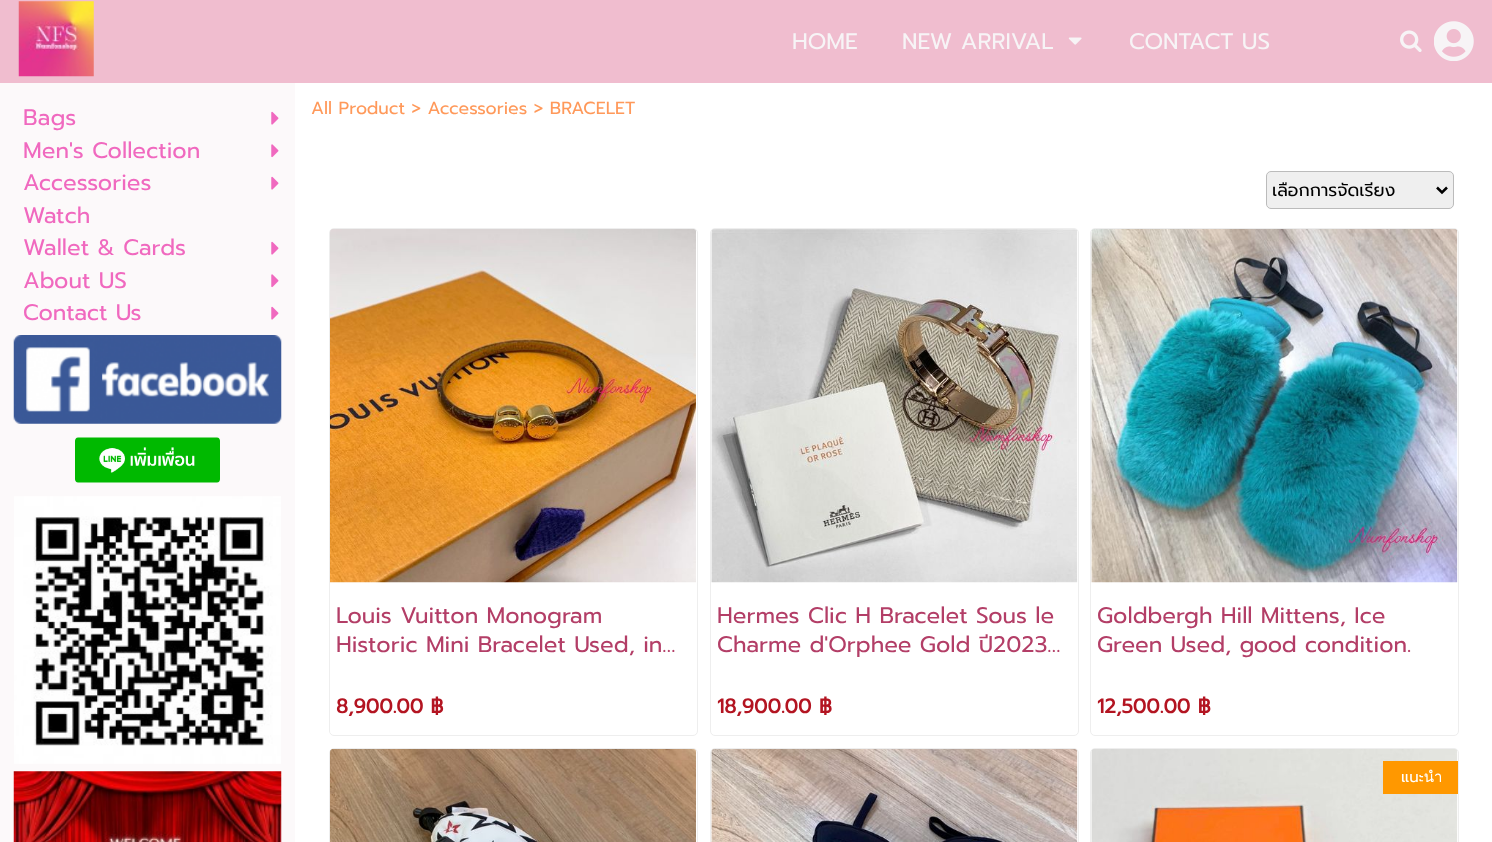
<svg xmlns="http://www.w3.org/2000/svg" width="1492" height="842">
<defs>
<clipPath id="clip1"><rect x="1273" y="176" width="160" height="29"/></clipPath>
</defs>
<rect width="100%" height="100%" fill="#fff"/>
<rect width="1492" height="83" fill="#f0bdcf"/>
<image x="18" y="1" width="76" height="76" href="media/1.png"/>
<text x="792" y="49" style="font-family:Prompt;font-size:22.5px;fill:#f7f4f6">HOME</text>
<text x="902" y="49" style="font-family:Prompt;font-size:22.5px;fill:#f7f4f6">NEW ARRIVAL</text>
<image x="1068" y="37" width="14" height="8" href="media/2.png"/>
<text x="1129" y="49" style="font-family:Prompt;font-size:22.5px;fill:#f7f4f6">CONTACT US</text>
<image x="1400" y="30" width="22" height="22" href="media/3.png"/>
<image x="1434" y="21" width="40" height="40" href="media/4.png"/>
<rect y="83" width="295" height="759" fill="#fcf9fa"/>
<text x="23" y="125" style="font-family:Prompt;font-size:22.5px;fill:#f069bf">Bags</text>
<image x="271" y="111" width="8" height="14" href="media/5.png"/>
<text x="23" y="158" style="font-family:Prompt;font-size:22.5px;fill:#f069bf">Men's Collection</text>
<image x="271" y="144" width="8" height="14" href="media/6.png"/>
<text x="23" y="190" style="font-family:Prompt;font-size:22.5px;fill:#f069bf">Accessories</text>
<image x="271" y="176" width="8" height="14" href="media/5.png"/>
<text x="23" y="223" style="font-family:Prompt;font-size:22.5px;fill:#f069bf">Watch</text>
<text x="23" y="255" style="font-family:Prompt;font-size:22.5px;fill:#f069bf">Wallet &amp; Cards</text>
<image x="271" y="241" width="8" height="14" href="media/5.png"/>
<text x="23" y="288" style="font-family:Prompt;font-size:22.5px;fill:#f069bf">About US</text>
<image x="271" y="274" width="8" height="14" href="media/6.png"/>
<text x="23" y="320" style="font-family:Prompt;font-size:22.5px;fill:#f069bf">Contact Us</text>
<image x="271" y="306" width="8" height="14" href="media/5.png"/>
<image x="13" y="335" width="269" height="89" href="media/7.png"/>
<image x="75" y="437" width="145" height="46" href="media/8.png"/>
<image x="14" y="496" width="267" height="268" href="media/9.png"/>
<image x="13" y="771" width="269" height="71" href="media/10.png"/>
<text x="311" y="114" style="font-family:Prompt;font-size:17.5px;fill:#ff995a">All Product &gt; Accessories &gt; BRACELET</text>
<rect x="1266.5" y="171.5" width="187" height="37" rx="4.5" fill="#efefef" stroke="#bbb"/>
<path d="M1437 187.5l5 5l5-5" fill="none" stroke="#000" stroke-width="2.5"/>
<g clip-path="url(#clip1)">
<text x="1272" y="196" style="font-family:Prompt;font-size:17.5px;fill:#000">เลือกการจัดเรียง</text>
</g>
<rect x="329.5" y="228.5" width="368" height="507" rx="4.5" fill="none" stroke="#eee"/>
<image x="330" y="229" width="366" height="354" href="media/11.png"/>
<text x="336" y="623" style="font-family:Prompt;font-size:22.5px;fill:#b33e67">Louis Vuitton Monogram</text>
<text x="336" y="652" style="font-family:Prompt;font-size:22.5px;fill:#b33e67">Historic Mini Bracelet Used, in…</text>
<text x="336" y="713" style="font-family:Prompt;font-size:20px;font-weight:bold;fill:#b31421">8,900.00 ฿</text>
<rect x="710.5" y="228.5" width="368" height="507" rx="4.5" fill="none" stroke="#eee"/>
<image x="711" y="229" width="367" height="354" href="media/12.png"/>
<text x="717" y="623" style="font-family:Prompt;font-size:22.5px;fill:#b33e67">Hermes Clic H Bracelet Sous le</text>
<text x="717" y="652" style="font-family:Prompt;font-size:22.5px;fill:#b33e67">Charme d'Orphee Gold ปี2023…</text>
<text x="717" y="713" style="font-family:Prompt;font-size:20px;font-weight:bold;fill:#b31421">18,900.00 ฿</text>
<rect x="1090.5" y="228.5" width="368" height="507" rx="4.5" fill="none" stroke="#eee"/>
<image x="1091" y="229" width="367" height="354" href="media/13.png"/>
<text x="1097" y="623" style="font-family:Prompt;font-size:22.5px;fill:#b33e67">Goldbergh Hill Mittens, Ice</text>
<text x="1097" y="652" style="font-family:Prompt;font-size:22.5px;fill:#b33e67">Green Used, good condition.</text>
<text x="1097" y="713" style="font-family:Prompt;font-size:20px;font-weight:bold;fill:#b31421">12,500.00 ฿</text>
<rect x="329.5" y="748.5" width="368" height="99" rx="4.5" fill="none" stroke="#eee"/>
<image x="330" y="749" width="366" height="93" href="media/14.png"/>
<rect x="710.5" y="748.5" width="368" height="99" rx="4.5" fill="none" stroke="#eee"/>
<image x="711" y="749" width="367" height="93" href="media/15.png"/>
<rect x="1090.5" y="748.5" width="368" height="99" rx="4.5" fill="none" stroke="#eee"/>
<image x="1091" y="749" width="367" height="93" href="media/16.png"/>
<rect x="1383" y="761" width="75" height="33" fill="#ff9800"/>
<text x="1401" y="782" style="font-family:Prompt;font-size:15px;fill:#fff">แนะนำ</text>
</svg>
